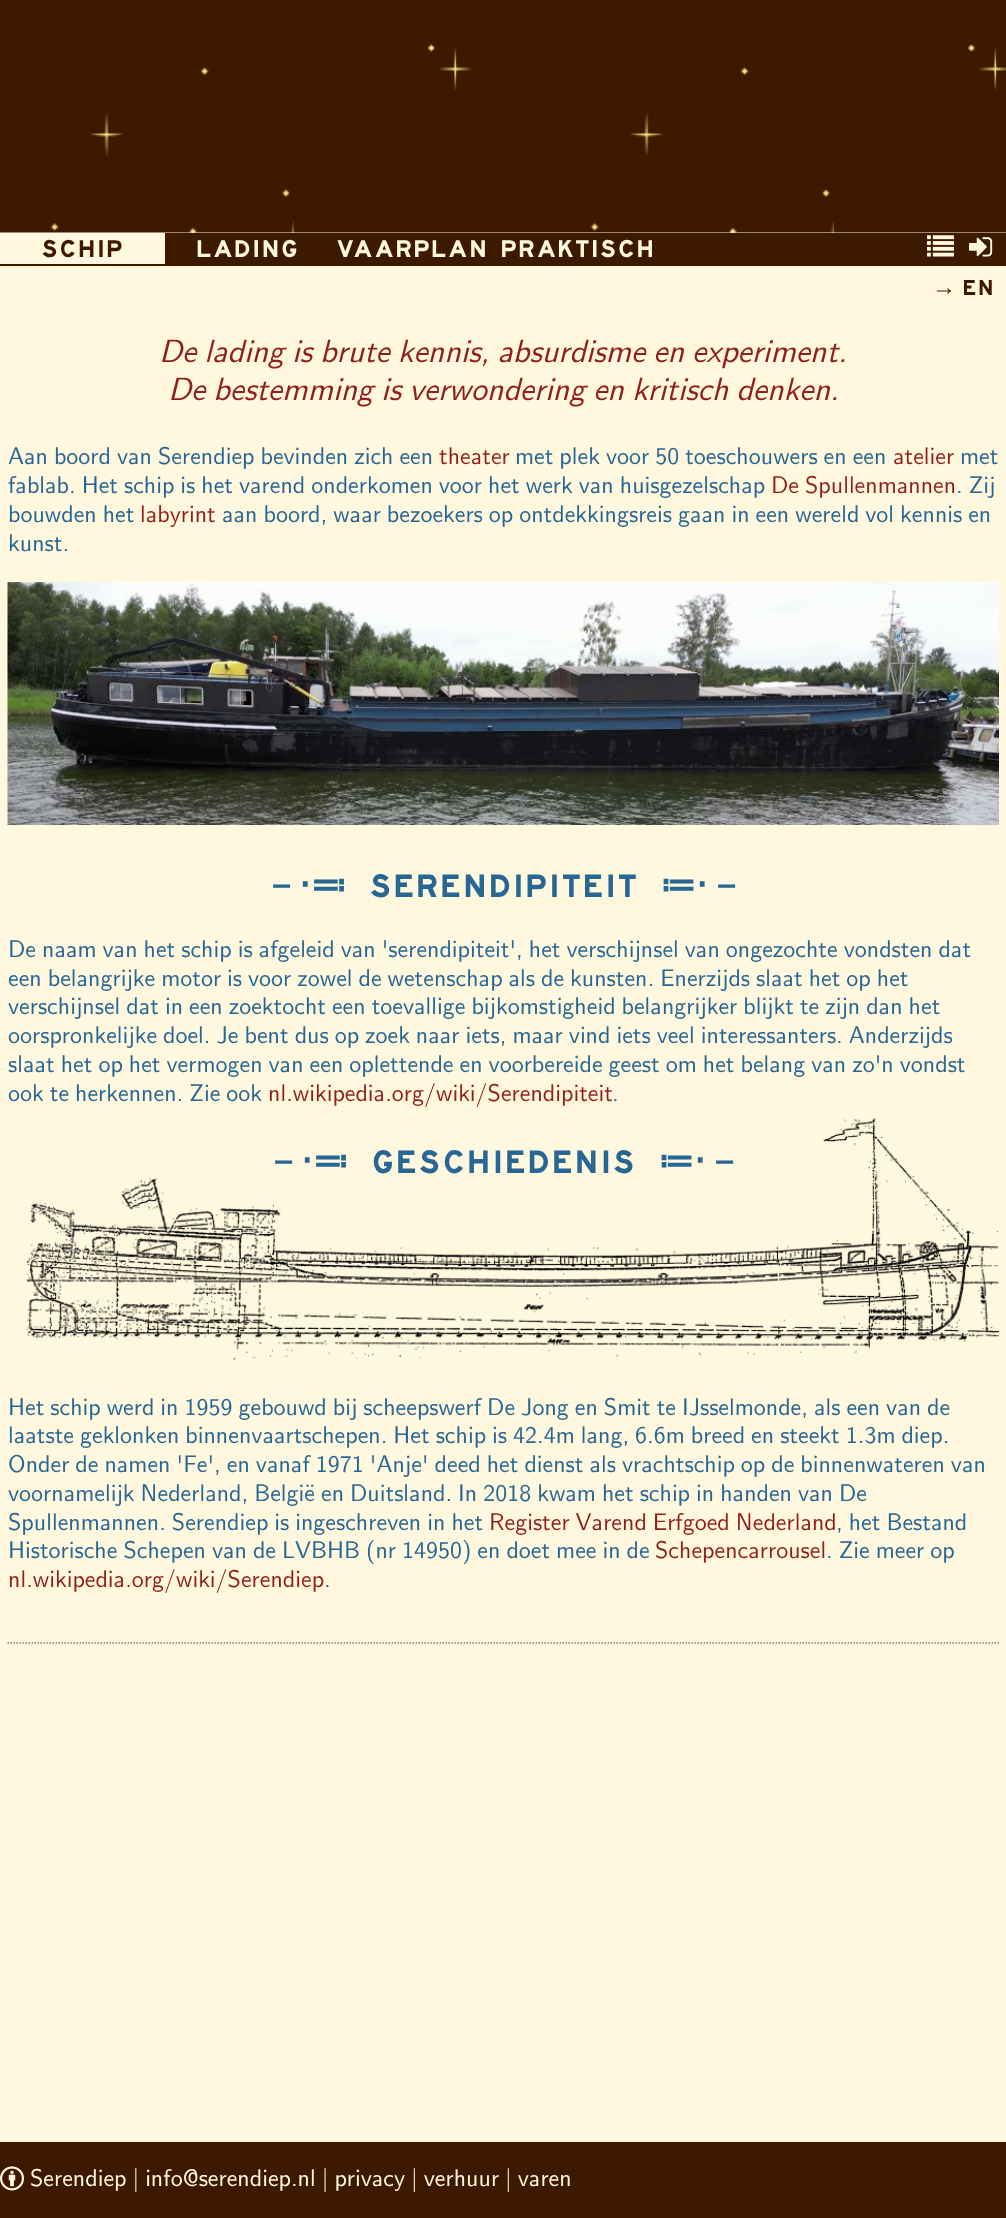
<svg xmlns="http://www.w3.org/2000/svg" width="1006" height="2218">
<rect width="100%" height="100%" fill="#fff8de"/>
<image x="0" y="0" width="1006" height="233" href="media/1.png"/>
<rect y="233" width="1006" height="33" fill="#3d1900"/>
<rect y="233" width="165" height="31" fill="#fff8de"/>
<text x="41" y="257" style="font-family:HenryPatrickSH;font-size:27px;fill:#3d1900">SCHIP</text>
<text x="196" y="257" style="font-family:HenryPatrickSH;font-size:27px;fill:#fff8de">LADING</text>
<text x="336" y="257" style="font-family:HenryPatrickSH;font-size:27px;fill:#fff8de">VAARPLAN</text>
<text x="500" y="257" style="font-family:HenryPatrickSH;font-size:27px;fill:#fff8de">PRAKTISCH</text>
<image x="927" y="235" width="27" height="22" href="media/2.png"/>
<image x="969" y="237" width="24" height="20" href="media/3.png"/>
<text x="932" y="295" style="font-family:Liberation Sans;font-size:24px;fill:#3d1900">→</text>
<text x="962" y="295" style="font-family:HenryPatrickSH;font-size:24px;fill:#3d1900">EN</text>
<text x="159" y="362" style="font-family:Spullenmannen;font-size:32px;font-style:italic;fill:#911e1e">De lading is brute kennis, absurdisme en experiment.</text>
<text x="168" y="400" style="font-family:Spullenmannen;font-size:32px;font-style:italic;fill:#911e1e">De bestemming is verwondering en kritisch denken.</text>
<text x="8" y="464" style="font-family:Spullenmannen;font-size:24px;fill:#286793">Aan boord van Serendiep bevinden zich een</text>
<text x="439" y="464" style="font-family:Spullenmannen;font-size:24px;fill:#911e1e">theater</text>
<text x="515" y="464" style="font-family:Spullenmannen;font-size:24px;fill:#286793">met plek voor 50 toeschouwers en een</text>
<text x="893" y="464" style="font-family:Spullenmannen;font-size:24px;fill:#911e1e">atelier</text>
<text x="960" y="464" style="font-family:Spullenmannen;font-size:24px;fill:#286793">met</text>
<text x="8" y="493" style="font-family:Spullenmannen;font-size:24px;fill:#286793">fablab. Het schip is het varend onderkomen voor het werk van huisgezelschap</text>
<text x="771" y="493" style="font-family:Spullenmannen;font-size:24px;fill:#911e1e">De Spullenmannen</text>
<text x="956" y="493" style="font-family:Spullenmannen;font-size:24px;fill:#286793">. Zij</text>
<text x="8" y="522" style="font-family:Spullenmannen;font-size:24px;fill:#286793">bouwden het</text>
<text x="140" y="522" style="font-family:Spullenmannen;font-size:24px;fill:#911e1e">labyrint</text>
<text x="222" y="522" style="font-family:Spullenmannen;font-size:24px;fill:#286793">aan boord, waar bezoekers op ontdekkingsreis gaan in een wereld vol kennis en</text>
<text x="8" y="551" style="font-family:Spullenmannen;font-size:24px;fill:#286793">kunst.</text>
<image x="7" y="582" width="992" height="243" href="media/4.png"/>
<text x="263" y="897" style="font-family:WenQuanYi Zen Hei;font-size:36px;font-weight:bold;fill:#286793">－</text>
<text x="299" y="897" style="font-family:DejaVu Sans;font-size:36px;font-weight:bold;fill:#286793">⋅≕</text>
<text x="369" y="897" style="font-family:HenryPatrickSH;font-size:36px;fill:#286793">SERENDIPITEIT</text>
<text x="660" y="897" style="font-family:DejaVu Sans;font-size:36px;font-weight:bold;fill:#286793">≔⋅</text>
<text x="708" y="897" style="font-family:WenQuanYi Zen Hei;font-size:36px;font-weight:bold;fill:#286793">－</text>
<text x="8" y="957" style="font-family:Spullenmannen;font-size:24px;fill:#286793">De naam van het schip is afgeleid van 'serendipiteit', het verschijnsel van ongezochte vondsten dat</text>
<text x="8" y="986" style="font-family:Spullenmannen;font-size:24px;fill:#286793">een belangrijke motor is voor zowel de wetenschap als de kunsten. Enerzijds slaat het op het</text>
<text x="8" y="1014" style="font-family:Spullenmannen;font-size:24px;fill:#286793">verschijnsel dat in een zoektocht een toevallige bijkomstigheid belangrijker blijkt te zijn dan het</text>
<text x="8" y="1043" style="font-family:Spullenmannen;font-size:24px;fill:#286793">oorspronkelijke doel. Je bent dus op zoek naar iets, maar vind iets veel interessanters. Anderzijds</text>
<text x="8" y="1072" style="font-family:Spullenmannen;font-size:24px;fill:#286793">slaat het op het vermogen van een oplettende en voorbereide geest om het belang van zo'n vondst</text>
<text x="8" y="1101" style="font-family:Spullenmannen;font-size:24px;fill:#286793">ook te herkennen. Zie ook</text>
<text x="268" y="1101" style="font-family:Spullenmannen;font-size:24px;fill:#911e1e">nl.wikipedia.org/wiki/Serendipiteit</text>
<text x="612" y="1101" style="font-family:Spullenmannen;font-size:24px;fill:#286793">.</text>
<text x="265" y="1173" style="font-family:WenQuanYi Zen Hei;font-size:36px;font-weight:bold;fill:#286793">－</text>
<text x="301" y="1173" style="font-family:DejaVu Sans;font-size:36px;font-weight:bold;fill:#286793">⋅≕</text>
<text x="371" y="1173" style="font-family:HenryPatrickSH;font-size:36px;fill:#286793">GESCHIEDENIS</text>
<text x="658" y="1173" style="font-family:DejaVu Sans;font-size:36px;font-weight:bold;fill:#286793">≔⋅</text>
<text x="706" y="1173" style="font-family:WenQuanYi Zen Hei;font-size:36px;font-weight:bold;fill:#286793">－</text>
<image x="26" y="1118" width="973" height="242" href="media/5.png"/>
<text x="8" y="1415" style="font-family:Spullenmannen;font-size:24px;fill:#286793">Het schip werd in 1959 gebouwd bij scheepswerf De Jong en Smit te IJsselmonde, als een van de</text>
<text x="8" y="1443" style="font-family:Spullenmannen;font-size:24px;fill:#286793">laatste geklonken binnenvaartschepen. Het schip is 42.4m lang, 6.6m breed en steekt 1.3m diep.</text>
<text x="8" y="1472" style="font-family:Spullenmannen;font-size:24px;fill:#286793">Onder de namen 'Fe', en vanaf 1971 'Anje' deed het dienst als vrachtschip op de binnenwateren van</text>
<text x="8" y="1501" style="font-family:Spullenmannen;font-size:24px;fill:#286793">voornamelijk Nederland, België en Duitsland. In 2018 kwam het schip in handen van De</text>
<text x="8" y="1530" style="font-family:Spullenmannen;font-size:24px;fill:#286793">Spullenmannen. Serendiep is ingeschreven in het</text>
<text x="489" y="1530" style="font-family:Spullenmannen;font-size:24px;fill:#911e1e">Register Varend Erfgoed Nederland</text>
<text x="836" y="1530" style="font-family:Spullenmannen;font-size:24px;fill:#286793">, het Bestand</text>
<text x="8" y="1558" style="font-family:Spullenmannen;font-size:24px;fill:#286793">Historische Schepen van de LVBHB (nr 14950) en doet mee in de</text>
<text x="655" y="1558" style="font-family:Spullenmannen;font-size:24px;fill:#911e1e">Schepencarrousel</text>
<text x="826" y="1558" style="font-family:Spullenmannen;font-size:24px;fill:#286793">. Zie meer op</text>
<text x="8" y="1587" style="font-family:Spullenmannen;font-size:24px;fill:#911e1e">nl.wikipedia.org/wiki/Serendiep</text>
<text x="324" y="1587" style="font-family:Spullenmannen;font-size:24px;fill:#286793">.</text>
<path d="M7.5 1643h991.5" fill="none" stroke="#808080" stroke-width="1.5" stroke-dasharray="1.5 1.5"/>
<rect y="2142" width="1006" height="76" fill="#3d1900"/>
<image x="0" y="2166" width="24" height="25" href="media/6.png"/>
<text x="30" y="2186" style="font-family:Spullenmannen;font-size:24px;fill:#fff8de">Serendiep | info@serendiep.nl | privacy | verhuur | varen</text>
</svg>
